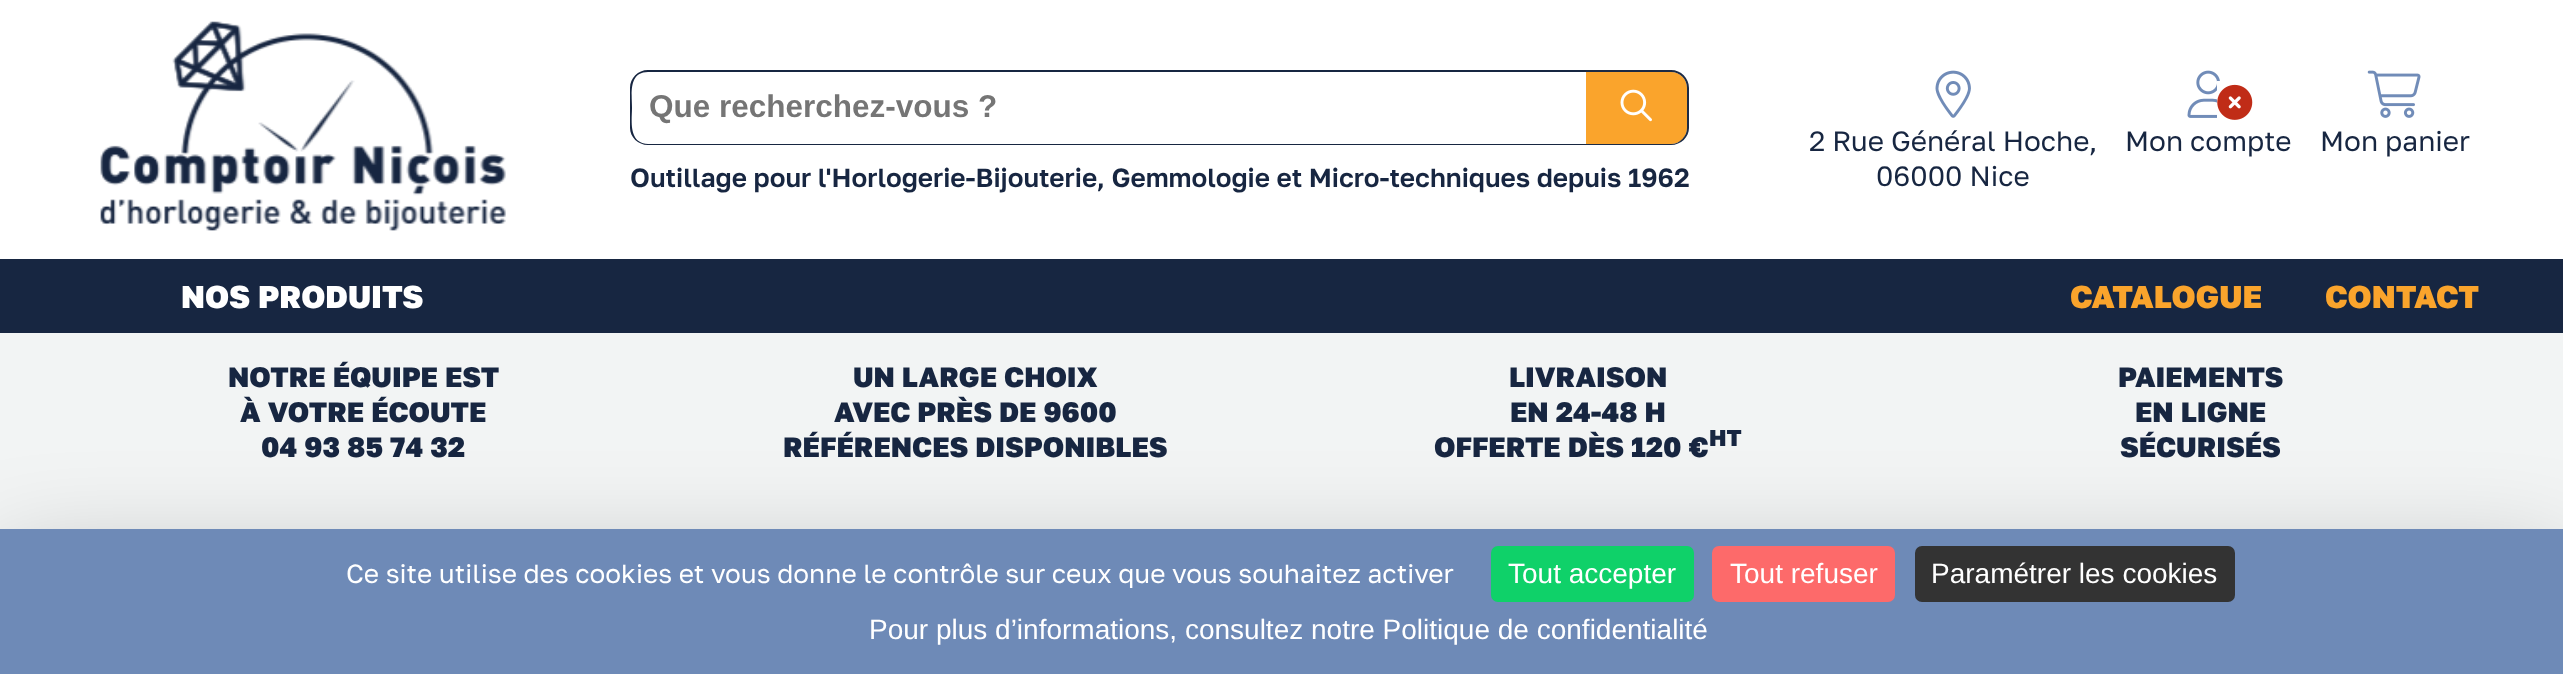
<svg xmlns="http://www.w3.org/2000/svg" width="2563" height="674">
<defs>
<clipPath id="clip1"><rect x="329" y="557" width="1143" height="31"/></clipPath>
</defs>
<rect width="100%" height="100%" fill="#f2f4f4"/>
<rect width="2563" height="259" fill="#fff"/>
<image x="100" y="21" width="406" height="210" href="media/1.png"/>
<path d="M648 70h938v75h-938c-10 0-18-8-18-17v-40c0-10 8-18 18-18zm0 2h938v72h-938c-20-1-16-24-16-36c0-13-4-36 16-36z" fill="#172641" fill-rule="evenodd"/>
<text x="649" y="117" style="font-family:Liberation Sans;font-size:31.5px;font-weight:bold;fill:#757575">Que recherchez-vous ?</text>
<path d="M1586 72h85c9 0 16 7 16 16v40c0 9-7 16-16 16h-85z" fill="#faa42c"/>
<path d="M1586 70h85c10 0 18 8 18 18v40c0 9-8 17-18 17h-85zm0 2h85c9 0 16 7 16 16v40c0 8-7 16-16 16h-85z" fill="#1c2b45" fill-rule="evenodd"/>
<image x="1620" y="89" width="32" height="33" href="media/2.png"/>
<text x="630" y="187" style="font-family:Golos Text;font-size:26.25px;font-weight:600;fill:#172641">Outillage pour l'Horlogerie-Bijouterie, Gemmologie et Micro-techniques depuis 1962</text>
<image x="1935" y="70" width="36" height="48" href="media/3.png"/>
<text x="1809" y="151" style="font-family:Golos Text;font-size:28px;fill:#172641">2 Rue Général Hoche,</text>
<text x="1876" y="186" style="font-family:Golos Text;font-size:28px;fill:#172641">06000 Nice</text>
<image x="2187" y="70" width="33" height="48" href="media/4.png"/>
<rect x="2217" y="81" width="3" height="37" fill="#fff"/>
<image x="2217" y="84" width="36" height="36" href="media/5.png"/>
<text x="2125" y="151" style="font-family:Golos Text;font-size:28px;fill:#172641">Mon compte</text>
<image x="2367" y="70" width="54" height="48" href="media/6.png"/>
<text x="2320" y="151" style="font-family:Golos Text;font-size:28px;fill:#172641">Mon panier</text>
<rect y="259" width="2563" height="74" fill="#172641"/>
<text x="181" y="308" style="font-family:Golos Text;font-size:31.5px;font-weight:800;fill:#fff">NOS PRODUITS</text>
<text x="2070" y="308" style="font-family:Golos Text;font-size:31.5px;font-weight:800;fill:#faa42c">CATALOGUE</text>
<text x="2325" y="308" style="font-family:Golos Text;font-size:31.5px;font-weight:800;fill:#faa42c">CONTACT</text>
<text x="228" y="387" style="font-family:Golos Text;font-size:28px;font-weight:800;fill:#172641">NOTRE ÉQUIPE EST</text>
<text x="240" y="422" style="font-family:Golos Text;font-size:28px;font-weight:800;fill:#172641">À VOTRE ÉCOUTE</text>
<text x="261" y="457" style="font-family:Golos Text;font-size:28px;font-weight:800;fill:#172641">04 93 85 74 32</text>
<text x="853" y="387" style="font-family:Golos Text;font-size:28px;font-weight:800;fill:#172641">UN LARGE CHOIX</text>
<text x="834" y="422" style="font-family:Golos Text;font-size:28px;font-weight:800;fill:#172641">AVEC PRÈS DE 9600</text>
<text x="783" y="457" style="font-family:Golos Text;font-size:28px;font-weight:800;fill:#172641">RÉFÉRENCES DISPONIBLES</text>
<text x="1509" y="387" style="font-family:Golos Text;font-size:28px;font-weight:800;fill:#172641">LIVRAISON</text>
<text x="1510" y="422" style="font-family:Golos Text;font-size:28px;font-weight:800;fill:#172641">EN 24-48 H</text>
<text x="1434" y="457" style="font-family:Golos Text;font-size:28px;font-weight:800;fill:#172641">OFFERTE DÈS 120 €</text>
<text x="1709" y="446" style="font-family:Golos Text;font-size:23px;font-weight:800;fill:#172641">HT</text>
<text x="2118" y="387" style="font-family:Golos Text;font-size:28px;font-weight:800;fill:#172641">PAIEMENTS</text>
<text x="2135" y="422" style="font-family:Golos Text;font-size:28px;font-weight:800;fill:#172641">EN LIGNE</text>
<text x="2120" y="457" style="font-family:Golos Text;font-size:28px;font-weight:800;fill:#172641">SÉCURISÉS</text>
<rect y="564" width="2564" height="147" fill="#00000040" filter="blur(52.5px)"/>
<rect y="529" width="2563" height="145" fill="#6e8ab7"/>
<g clip-path="url(#clip1)">
<text x="346" y="583" style="font-family:Golos Text;font-size:26.25px;fill:#fff">Ce site utilise des cookies et vous donne le contrôle sur ceux que vous souhaitez activer</text>
</g>
<rect x="1491" y="546" width="203" height="56" rx="7" fill="#0fd169"/>
<text x="1508" y="583" style="font-family:Liberation Sans;font-size:28px;fill:#fff">Tout accepter</text>
<rect x="1712" y="546" width="183" height="56" rx="7" fill="#fd6a6a"/>
<text x="1730" y="583" style="font-family:Liberation Sans;font-size:28px;fill:#fff">Tout refuser</text>
<rect x="1915" y="546" width="320" height="56" rx="7" fill="#333"/>
<text x="1931" y="583" style="font-family:Liberation Sans;font-size:28px;fill:#fff">Paramétrer les cookies</text>
<text x="869" y="639" style="font-family:Liberation Sans;font-size:28px;fill:#fff">Pour plus d’informations, consultez notre Politique de confidentialité</text>
</svg>
